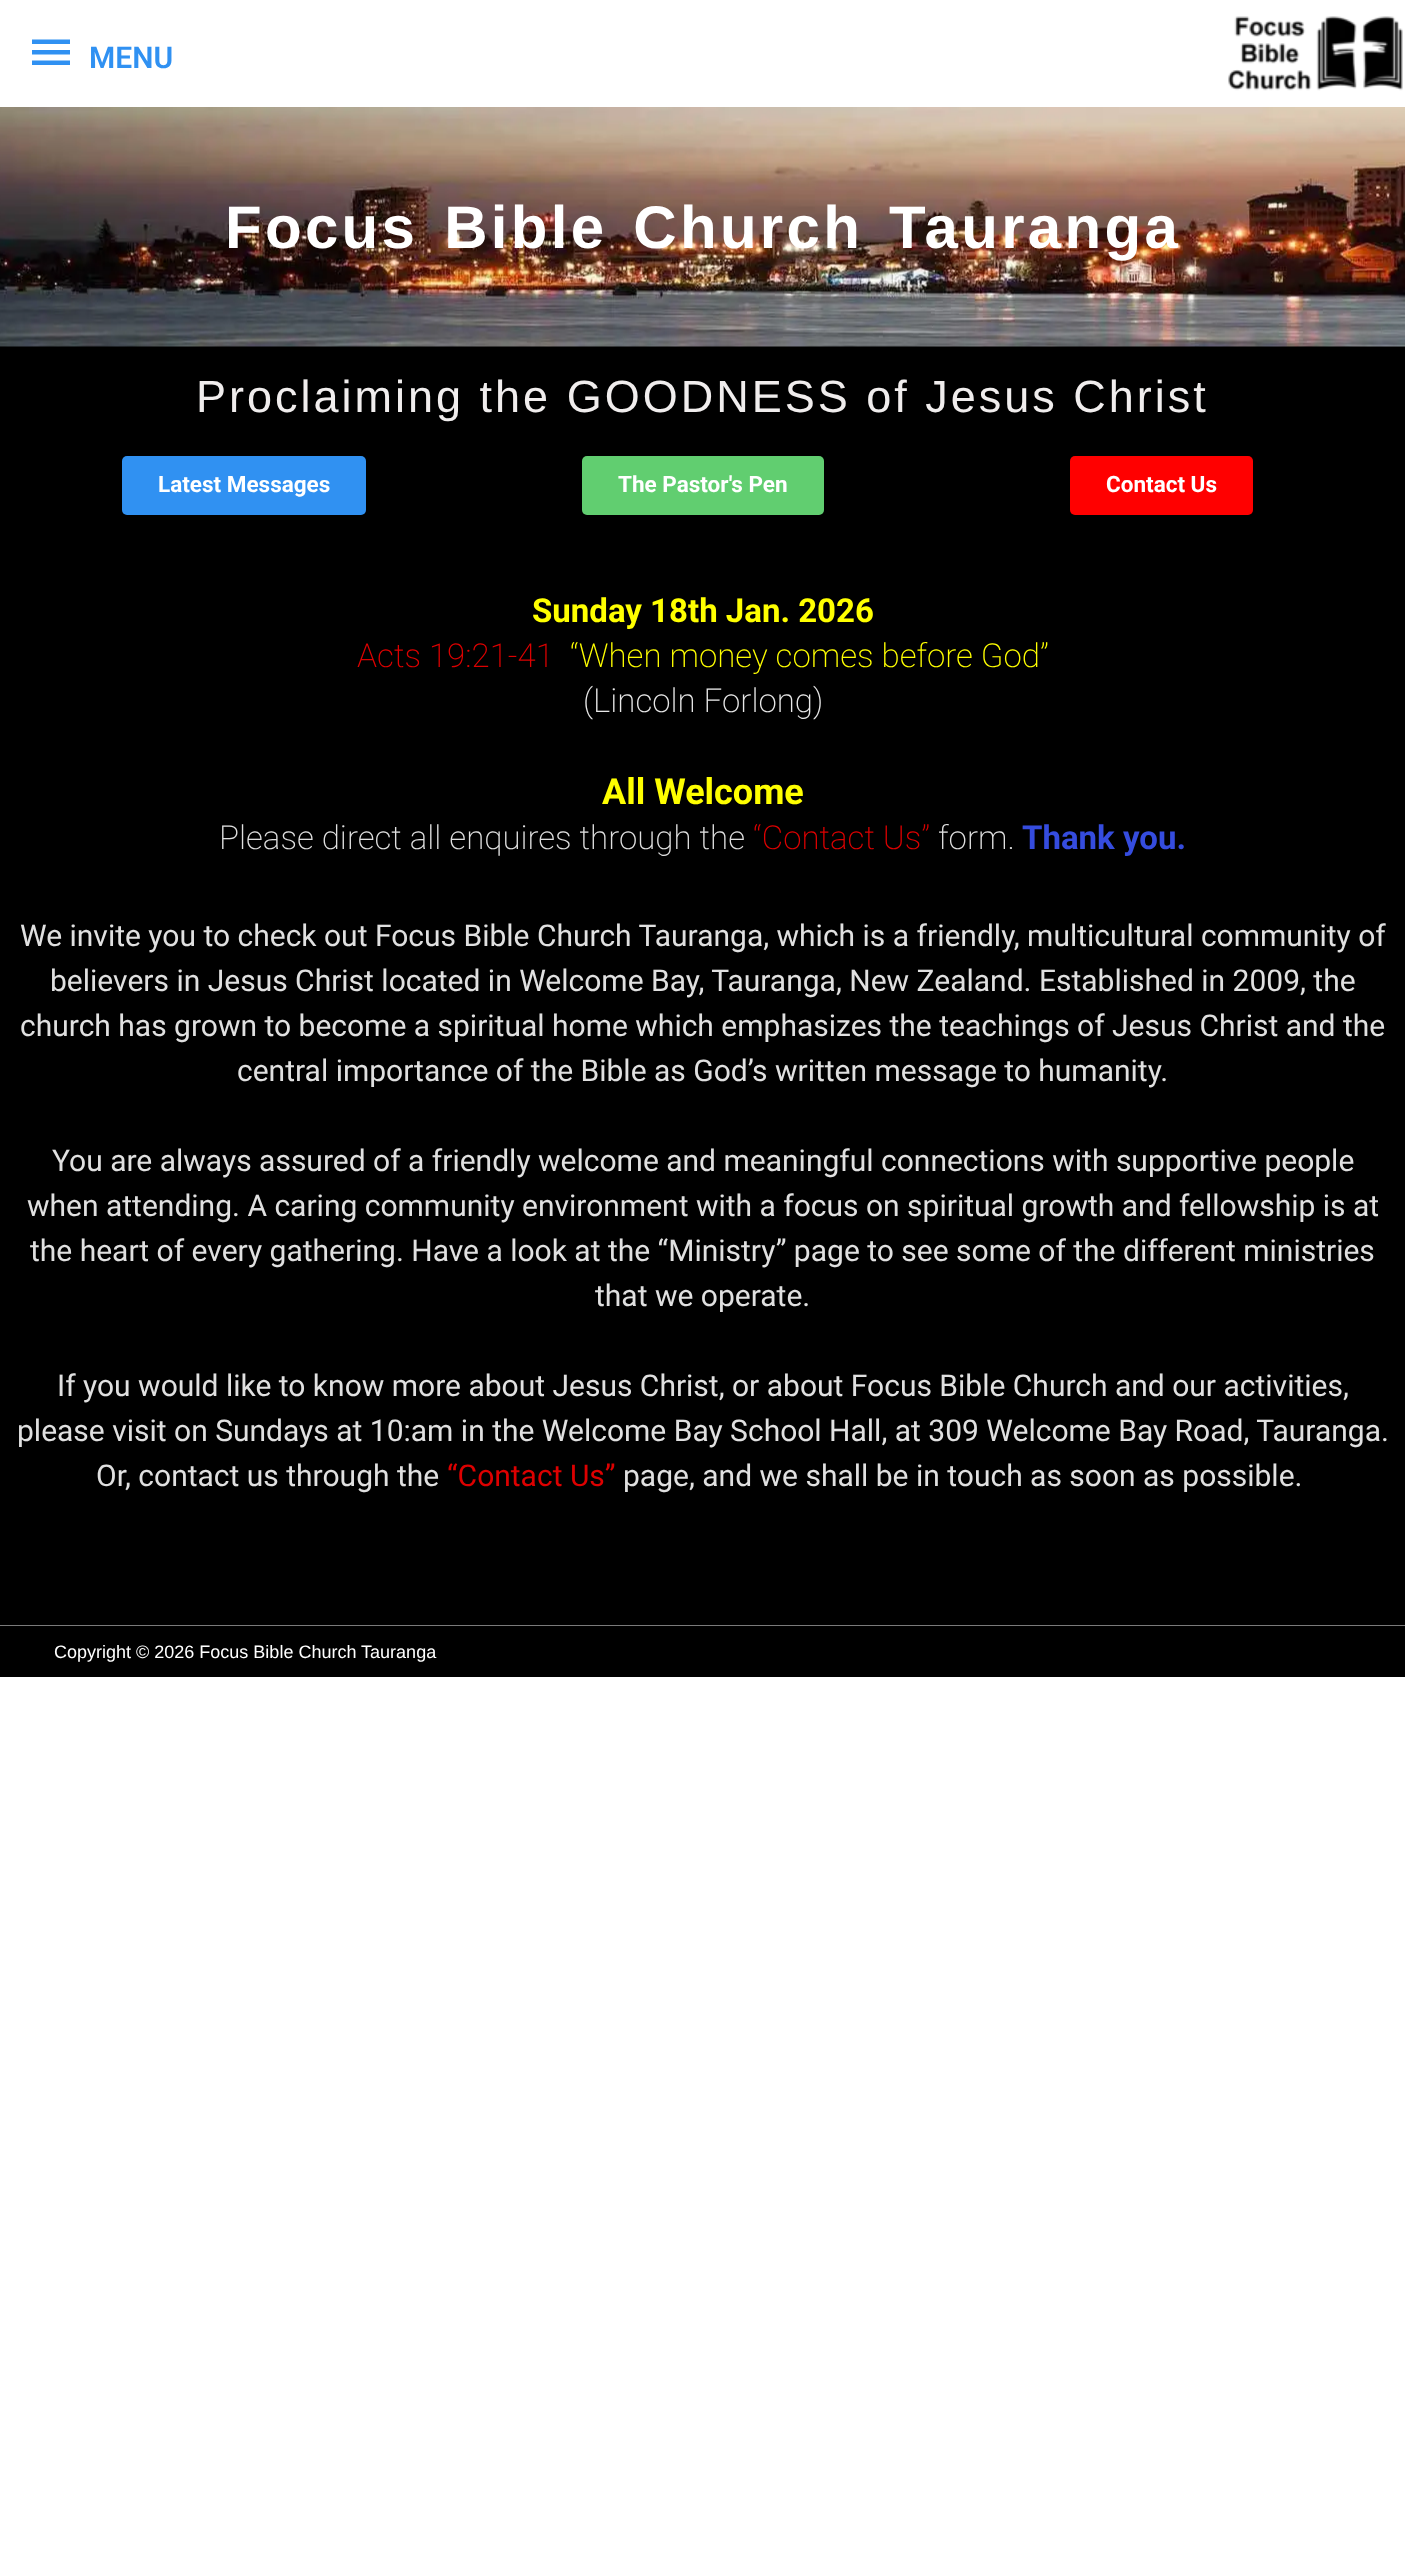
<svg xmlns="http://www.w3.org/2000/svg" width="1405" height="2560">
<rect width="100%" height="100%" fill="#fff"/>
<path d="M32 39.5h38v4.5h-38zm0 15v-4.5h38v4.5zm0 10.5v-4.5h38v4.5z" fill="#3091f2"/>
<text x="89" y="68" style="font-family:Roboto;font-size:30px;font-weight:600;fill:#3091f2">MENU</text>
<image x="1228" y="16" width="175" height="75" href="media/1.png"/>
<rect y="346" width="1405" height="1279" fill="#000"/>
<image x="0" y="107" width="1405" height="240" href="media/2.png"/>
<text x="225" y="248" word-spacing="6" style="font-family:Liberation Sans;font-size:60px;font-weight:bold;letter-spacing:3.3px;fill:#fff">Focus Bible Church Tauranga</text>
<text x="196" y="412" style="font-family:Liberation Sans;font-size:45px;letter-spacing:3px;fill:#f0eded">Proclaiming the GOODNESS of Jesus Christ</text>
<rect x="122" y="456" width="244" height="59" rx="5" fill="#3091f2"/>
<text x="158" y="492" style="font-family:Roboto;font-size:22.5px;font-weight:bold;fill:#fff">Latest Messages</text>
<rect x="582" y="456" width="242" height="59" rx="5" fill="#61ce70"/>
<text x="618" y="492" style="font-family:Roboto;font-size:22.5px;font-weight:bold;fill:#fff">The Pastor's Pen</text>
<rect x="1070" y="456" width="183" height="59" rx="5" fill="#f00"/>
<text x="1106" y="492" style="font-family:Roboto;font-size:22.5px;font-weight:bold;fill:#fff">Contact Us</text>
<text x="532" y="622" style="font-family:Roboto;font-size:33px;font-weight:bold;fill:#ff0">Sunday 18th Jan. 2026</text>
<text x="357" y="667" style="font-family:Roboto;font-size:33px;font-weight:200;fill:#d00">Acts 19:21-41</text>
<text x="570" y="667" style="font-family:Roboto;font-size:33px;font-weight:200;fill:#ff0">“When money comes before God”</text>
<text x="583" y="712" style="font-family:Roboto;font-size:33px;font-weight:200;fill:#e8e8e8">(Lincoln Forlong)</text>
<text x="602" y="804" style="font-family:Roboto;font-size:36px;font-weight:bold;fill:#ff0">All Welcome</text>
<text x="219" y="849" style="font-family:Roboto;font-size:33px;font-weight:200;fill:#e0e0e0">Please direct all enquires through the</text>
<text x="753" y="849" style="font-family:Roboto;font-size:33px;font-weight:200;fill:#d00">“Contact Us”</text>
<text x="938" y="849" style="font-family:Roboto;font-size:33px;font-weight:200;fill:#e0e0e0">form.</text>
<text x="1022" y="849" style="font-family:Roboto;font-size:33px;font-weight:bold;fill:#354cde">Thank you.</text>
<text x="20" y="946" style="font-family:Roboto;font-size:30px;fill:#e0e0e0">We invite you to check out Focus Bible Church Tauranga, which is a friendly, multicultural community of</text>
<text x="50" y="991" style="font-family:Roboto;font-size:30px;fill:#e0e0e0">believers in Jesus Christ located in Welcome Bay, Tauranga, New Zealand. Established in 2009, the</text>
<text x="20" y="1036" style="font-family:Roboto;font-size:30px;fill:#e0e0e0">church has grown to become a spiritual home which emphasizes the teachings of Jesus Christ and the</text>
<text x="237" y="1081" style="font-family:Roboto;font-size:30px;fill:#e0e0e0">central importance of the Bible as God’s written message to humanity.</text>
<text x="52" y="1171" style="font-family:Roboto;font-size:30px;fill:#e0e0e0">You are always assured of a friendly welcome and meaningful connections with supportive people</text>
<text x="27" y="1216" style="font-family:Roboto;font-size:30px;fill:#e0e0e0">when attending. A caring community environment with a focus on spiritual growth and fellowship is at</text>
<text x="30" y="1261" style="font-family:Roboto;font-size:30px;fill:#e0e0e0">the heart of every gathering. Have a look at the “Ministry” page to see some of the different ministries</text>
<text x="595" y="1306" style="font-family:Roboto;font-size:30px;fill:#e0e0e0">that we operate.</text>
<text x="57" y="1396" style="font-family:Roboto;font-size:30px;fill:#e0e0e0">If you would like to know more about Jesus Christ, or about Focus Bible Church and our activities,</text>
<text x="17" y="1441" style="font-family:Roboto;font-size:30px;fill:#e0e0e0">please visit on Sundays at 10:am in the Welcome Bay School Hall, at 309 Welcome Bay Road, Tauranga.</text>
<text x="96" y="1486" style="font-family:Roboto;font-size:30px;fill:#e0e0e0">Or, contact us through the</text>
<text x="447" y="1486" style="font-family:Roboto;font-size:30px;fill:#d00">“Contact Us”</text>
<text x="623" y="1486" style="font-family:Roboto;font-size:30px;fill:#e0e0e0">page, and we shall be in touch as soon as possible.</text>
<rect y="1625" width="1405" height="1" fill="#7a7a7a"/>
<rect y="1626" width="1405" height="51" fill="#000"/>
<text x="54" y="1658" style="font-family:Liberation Sans;font-size:18px;fill:#fff">Copyright © 2026 Focus Bible Church Tauranga</text>
</svg>
